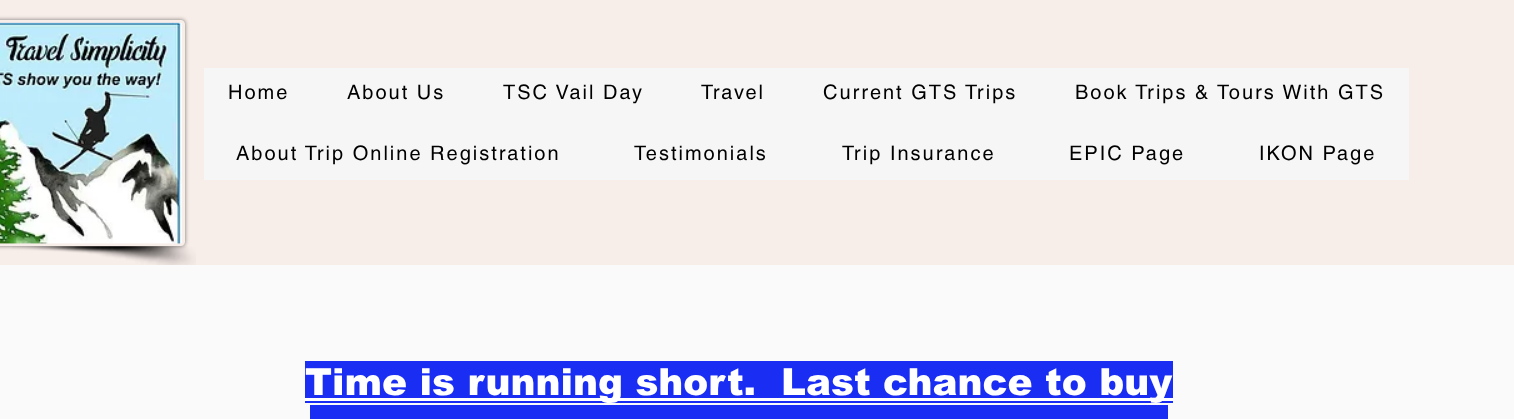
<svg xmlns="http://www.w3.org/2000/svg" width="1514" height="419">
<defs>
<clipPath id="clip1"><path d="M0 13h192v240h-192zm-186 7h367c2 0 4 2 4 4v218c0 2-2 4-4 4h-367c-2 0-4-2-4-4v-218c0-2 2-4 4-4z" clip-rule="evenodd"/></clipPath>
</defs>
<rect width="100%" height="100%" fill="#f7ede9"/>
<g clip-path="url(#clip1)">
<rect x="-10" y="20" width="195" height="226" rx="4" fill="#00000080" filter="blur(2px)"/>
</g>
<image x="0" y="22" width="182" height="222" href="media/1.png"/>
<image x="12" y="246" width="184" height="19" href="media/2.png"/>
<rect x="204" y="68" width="1205" height="112" fill="#f6f6f6"/>
<text x="228" y="99" style="font-family:helvetica;font-size:20px;letter-spacing:2px;fill:#000">Home</text>
<text x="347" y="99" style="font-family:helvetica;font-size:20px;letter-spacing:2px;fill:#000">About Us</text>
<text x="503" y="99" style="font-family:helvetica;font-size:20px;letter-spacing:2px;fill:#000">TSC Vail Day</text>
<text x="701" y="99" style="font-family:helvetica;font-size:20px;letter-spacing:2px;fill:#000">Travel</text>
<text x="823" y="99" style="font-family:helvetica;font-size:20px;letter-spacing:2px;fill:#000">Current GTS Trips</text>
<text x="1075" y="99" style="font-family:helvetica;font-size:20px;letter-spacing:2px;fill:#000">Book Trips &amp; Tours With GTS</text>
<text x="236" y="160" style="font-family:helvetica;font-size:20px;letter-spacing:2px;fill:#000">About Trip Online Registration</text>
<text x="634" y="160" style="font-family:helvetica;font-size:20px;letter-spacing:2px;fill:#000">Testimonials</text>
<text x="842" y="160" style="font-family:helvetica;font-size:20px;letter-spacing:2px;fill:#000">Trip Insurance</text>
<text x="1069" y="160" style="font-family:helvetica;font-size:20px;letter-spacing:2px;fill:#000">EPIC Page</text>
<text x="1259" y="160" style="font-family:helvetica;font-size:20px;letter-spacing:2px;fill:#000">IKON Page</text>
<rect y="265" width="1514" height="154" fill="#fafafa"/>
<rect x="305" y="361" width="868" height="42" fill="#1a2df3"/>
<rect x="305" y="398" width="868" height="3" fill="#fff"/>
<text x="305" y="395" style="font-family:arial;font-size:37.5px;font-weight:900;fill:#fff" xml:space="preserve">Time is running short.  Last chance to buy</text>
<rect x="310" y="405" width="858" height="14" fill="#1a2df3"/>
</svg>
